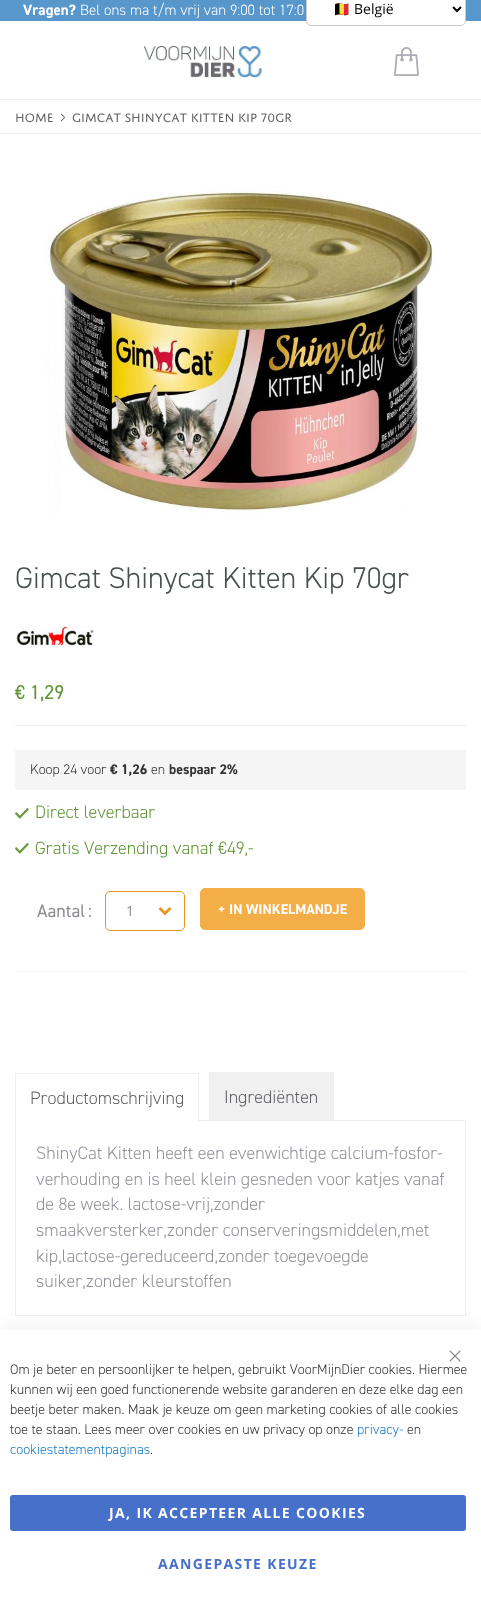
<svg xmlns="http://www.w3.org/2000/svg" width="481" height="1612">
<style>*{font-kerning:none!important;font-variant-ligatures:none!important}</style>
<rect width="100%" height="100%" fill="#fff"/>
<rect y="99" width="481" height="1" fill="#eee"/>
<rect width="481" height="21" fill="#5897cc"/>
<rect x="307" y="-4" width="158" height="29" rx="4" fill="#fff"/>
<rect x="306.5" y="-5.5" width="159" height="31" rx="4.5" fill="none" stroke="#ccc"/>
<path d="M453 7l4 4l4-4" fill="none" stroke="#000" stroke-width="2"/>
<text x="333" y="14" style="font-family:Noto Color Emoji;font-size:14px;fill:#000">🇧🇪</text>
<text x="354" y="14" style="font-family:Open Sans;font-size:14px;fill:#000">België</text>
<image x="144" y="46" width="118" height="32" href="media/1.png"/>
<image x="394" y="47" width="25" height="29" href="media/2.png"/>
<rect y="133" width="481" height="1" fill="#eee"/>
<text x="15" y="122" style="font-family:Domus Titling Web;font-size:13px;fill:#605f65">HOME</text>
<image x="60" y="113" width="6" height="9" href="media/3.png"/>
<text x="72" y="122" style="font-family:Domus Titling Web;font-size:13px;fill:#605f65">GIMCAT SHINYCAT KITTEN KIP 70GR</text>
<image x="46" y="187" width="391" height="328" href="media/4.png"/>
<rect x="15" y="971" width="451" height="1" fill="#f4f3f6"/>
<text x="15" y="588" style="font-family:'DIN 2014';font-size:30px;font-weight:300;fill:#484f51">Gimcat Shinycat Kitten Kip 70gr</text>
<image x="16" y="626" width="78" height="22" href="media/5.png"/>
<rect x="15" y="725" width="451" height="1" fill="#eeeeef"/>
<text x="15" y="699" style="font-family:'DIN 2014';font-size:20px;fill:#609636">€ 1,29</text>
<rect x="15" y="750" width="451" height="40" fill="#f5f5f5"/>
<text x="30" y="774" style="font-family:'DIN 2014';font-size:14px;font-weight:300;fill:#333">Koop 24 voor</text>
<text x="110" y="774" style="font-family:'DIN 2014';font-size:14px;font-weight:bold;fill:#333">€ 1,26</text>
<text x="151" y="774" style="font-family:'DIN 2014';font-size:14px;font-weight:300;fill:#333">en</text>
<text x="169" y="774" style="font-family:'DIN 2014';font-size:14px;font-weight:bold;fill:#333">bespaar 2%</text>
<image x="15" y="808" width="14" height="11" href="media/6.png"/>
<text x="35" y="818" style="font-family:'DIN 2014';font-size:18px;font-weight:300;fill:#609636">Direct leverbaar</text>
<image x="15" y="843" width="14" height="11" href="media/6.png"/>
<text x="35" y="854" style="font-family:'DIN 2014';font-size:18px;font-weight:300;fill:#609636">Gratis Verzending vanaf €49,-</text>
<text x="37" y="917" style="font-family:'DIN 2014';font-size:18px;fill:#8e8b93">Aantal</text>
<text x="88" y="917" style="font-family:'DIN 2014';font-size:18px;fill:#8e8b93">:</text>
<rect x="105.5" y="891.5" width="79" height="39" rx="4.5" fill="none" stroke="#e9961d"/>
<text x="126" y="916" style="font-family:Open Sans;font-size:14px;fill:#8e8b93">1</text>
<image x="158" y="907" width="14" height="9" href="media/7.png"/>
<rect x="200.5" y="888.5" width="164" height="41" rx="4.5" fill="#f4ae48" stroke="#f4ae48"/>
<text x="218" y="914" style="font-family:'DIN 2014';font-size:14px;font-weight:bold;fill:#fff">+ IN WINKELMANDJE</text>
<rect x="15.5" y="1120.5" width="450" height="195" fill="none" stroke="#eee"/>
<rect x="16" y="1120" width="182" height="1" fill="#fff"/>
<rect x="15" y="1073" width="184" height="1" fill="#eee"/>
<rect x="198" y="1073" width="1" height="49" fill="#eee"/>
<rect x="15" y="1073" width="1" height="49" fill="#eee"/>
<text x="30" y="1104" style="font-family:'DIN 2014';font-size:18px;font-weight:300;fill:#605f65">Productomschrijving</text>
<rect x="210" y="1073" width="123" height="47" fill="#f0f0f0"/>
<rect x="209" y="1072" width="125" height="1" fill="#eee"/>
<rect x="333" y="1072" width="1" height="49" fill="#eee"/>
<rect x="209" y="1072" width="1" height="49" fill="#eee"/>
<text x="224" y="1103" style="font-family:'DIN 2014';font-size:18px;font-weight:300;fill:#605f65">Ingrediënten</text>
<text x="36" y="1159" style="font-family:'DIN 2014';font-size:18px;font-weight:300;fill:#94919b">ShinyCat Kitten heeft een evenwichtige calcium-fosfor-</text>
<text x="36" y="1185" style="font-family:'DIN 2014';font-size:18px;font-weight:300;fill:#94919b">verhouding en is heel klein gesneden voor katjes vanaf</text>
<text x="36" y="1210" style="font-family:'DIN 2014';font-size:18px;font-weight:300;fill:#94919b">de 8e week. lactose-vrij,zonder</text>
<text x="36" y="1236" style="font-family:'DIN 2014';font-size:18px;font-weight:300;fill:#94919b">smaakversterker,zonder conserveringsmiddelen,met</text>
<text x="36" y="1262" style="font-family:'DIN 2014';font-size:18px;font-weight:300;fill:#94919b">kip,lactose-gereduceerd,zonder toegevoegde</text>
<text x="36" y="1287" style="font-family:'DIN 2014';font-size:18px;font-weight:300;fill:#94919b">suiker,zonder kleurstoffen</text>
<text x="23" y="15" style="font-family:'DIN 2014';font-size:15px;font-weight:bold;fill:#fff">Vragen?</text>
<text x="80" y="15" style="font-family:'DIN 2014';font-size:15px;font-weight:300;fill:#fff">Bel ons ma t/m vrij van 9:00 tot 17:0</text>
<rect y="1328" width="481" height="282" fill="#0000000f" filter="blur(9px)"/>
<rect y="1330" width="481" height="282" fill="#fff"/>
<image x="449" y="1350" width="12" height="12" href="media/8.png"/>
<text x="10" y="1374" style="font-family:'DIN 2014';font-size:14px;font-weight:300;fill:#333">Om je beter en persoonlijker te helpen, gebruikt VoorMijnDier cookies. Hiermee</text>
<text x="10" y="1394" style="font-family:'DIN 2014';font-size:14px;font-weight:300;fill:#333">kunnen wij een goed functionerende website garanderen en deze elke dag een</text>
<text x="10" y="1414" style="font-family:'DIN 2014';font-size:14px;font-weight:300;fill:#333">beetje beter maken. Maak je keuze om geen marketing cookies of alle cookies</text>
<text x="10" y="1434" style="font-family:'DIN 2014';font-size:14px;font-weight:300;fill:#333">toe te staan. Lees meer over cookies en uw privacy op onze</text>
<text x="357" y="1434" style="font-family:'DIN 2014';font-size:14px;font-weight:300;fill:#1979c3">privacy-</text>
<text x="407" y="1434" style="font-family:'DIN 2014';font-size:14px;font-weight:300;fill:#333">en</text>
<text x="10" y="1454" style="font-family:'DIN 2014';font-size:14px;font-weight:300;fill:#1979c3">cookiestatementpaginas</text>
<text x="150" y="1454" style="font-family:'DIN 2014';font-size:14px;font-weight:300;fill:#333">.</text>
<rect x="10" y="1495" width="456" height="36" rx="3" fill="#4670c9"/>
<text x="109" y="1518" style="font-family:Open Sans;font-size:14px;font-weight:bold;letter-spacing:1.35px;fill:#fff">JA, IK ACCEPTEER ALLE COOKIES</text>
<text x="158" y="1569" style="font-family:Open Sans;font-size:14px;font-weight:bold;letter-spacing:1.35px;fill:#4670c9">AANGEPASTE KEUZE</text>
</svg>
